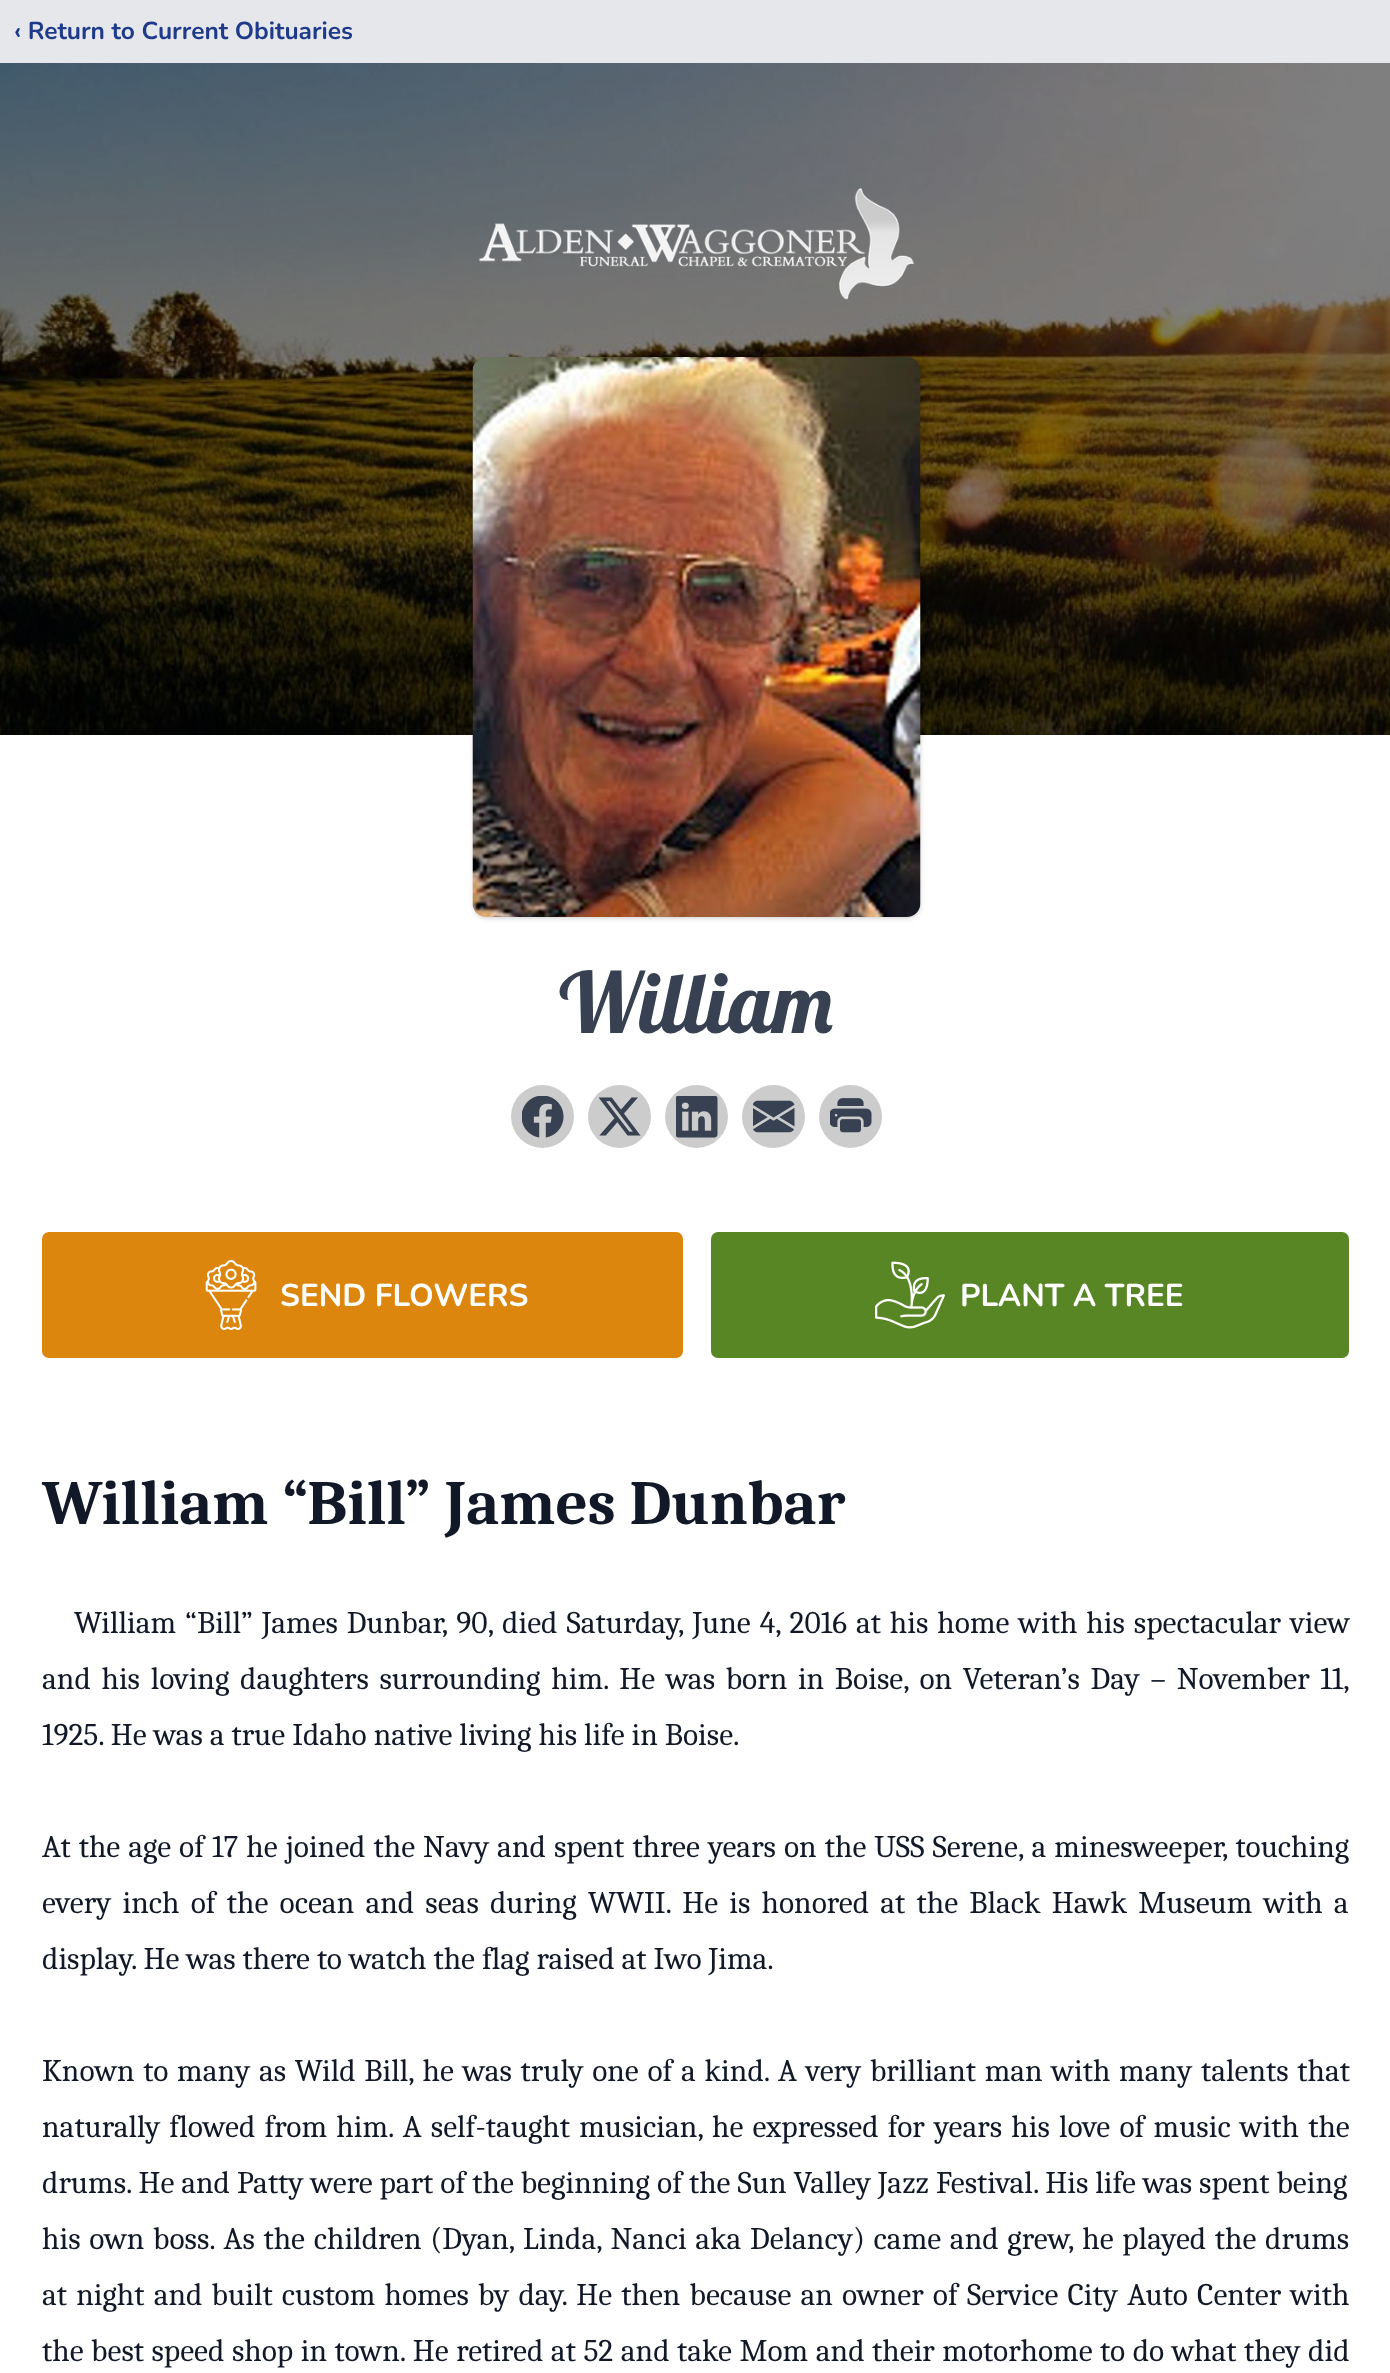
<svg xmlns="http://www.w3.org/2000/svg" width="1390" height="2373">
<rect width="100%" height="100%" fill="#fff"/>
<rect width="1390" height="63" fill="#e5e7eb"/>
<text x="14" y="39" style="font-family:Nunito;font-size:24.5px;font-weight:bold;fill:#1e3a8a">‹ Return to Current Obituaries</text>
<image x="0" y="63" width="1390" height="672" href="media/1.png"/>
<image x="478" y="188" width="437" height="112" href="media/2.png"/>
<rect x="474" y="361" width="445" height="556" rx="12" fill="#0000001a" filter="blur(2px)"/>
<rect x="473" y="359" width="448" height="560" rx="14" fill="#0000001a" filter="blur(2.5px)"/>
<image x="472" y="357" width="449" height="560" href="media/3.png"/>
<text x="559" y="1033" style="font-family:Lobster;font-size:84px;fill:#374151">William</text>
<circle cx="542.5" cy="1116.5" r="31.5" fill="#ccc"/>
<image x="522" y="1096" width="42" height="42" href="media/4.png"/>
<circle cx="619.5" cy="1116.5" r="31.5" fill="#ccc"/>
<image x="599" y="1097" width="42" height="39" href="media/5.png"/>
<circle cx="696.5" cy="1116.5" r="31.5" fill="#ccc"/>
<image x="676" y="1096" width="42" height="42" href="media/6.png"/>
<circle cx="773.5" cy="1116.5" r="31.5" fill="#ccc"/>
<image x="753" y="1100" width="42" height="33" href="media/7.png"/>
<circle cx="850.5" cy="1116.5" r="31.5" fill="#ccc"/>
<image x="830" y="1098" width="42" height="35" href="media/8.png"/>
<rect x="42" y="1232" width="641" height="126" rx="7" fill="#dc860d"/>
<image x="205" y="1260" width="52" height="70" href="media/9.png"/>
<text x="280" y="1306" style="font-family:Nunito;font-size:31.5px;font-weight:bold;fill:#fff">SEND FLOWERS</text>
<rect x="711" y="1232" width="638" height="126" rx="7" fill="#588624"/>
<image x="875" y="1261" width="70" height="68" href="media/10.png"/>
<text x="960" y="1306" style="font-family:Nunito;font-size:31.5px;font-weight:bold;fill:#fff">PLANT A TREE</text>
<text x="42" y="1524" style="font-family:Caladea;font-size:63px;font-weight:bold;fill:#111827">William “Bill” James Dunbar</text>
<text x="74" y="1633" word-spacing="2" style="font-family:Caladea;font-size:31.5px;fill:#111827">William “Bill” James Dunbar, 90, died Saturday, June 4, 2016 at his home with his spectacular view</text>
<text x="42" y="1689" word-spacing="3.75" style="font-family:Caladea;font-size:31.5px;fill:#111827">and his loving daughters surrounding him. He was born in Boise, on Veteran’s Day – November 11,</text>
<text x="42" y="1745" style="font-family:Caladea;font-size:31.5px;fill:#111827">1925. He was a true Idaho native living his life in Boise.</text>
<text x="42" y="1857" word-spacing="1.1" style="font-family:Caladea;font-size:31.5px;fill:#111827">At the age of 17 he joined the Navy and spent three years on the USS Serene, a minesweeper, touching</text>
<text x="42" y="1913" word-spacing="4.25" style="font-family:Caladea;font-size:31.5px;fill:#111827">every inch of the ocean and seas during WWII. He is honored at the Black Hawk Museum with a</text>
<text x="42" y="1969" style="font-family:Caladea;font-size:31.5px;fill:#111827">display. He was there to watch the flag raised at Iwo Jima.</text>
<text x="42" y="2081" word-spacing="1.75" style="font-family:Caladea;font-size:31.5px;fill:#111827">Known to many as Wild Bill, he was truly one of a kind. A very brilliant man with many talents that</text>
<text x="42" y="2137" word-spacing="2.25" style="font-family:Caladea;font-size:31.5px;fill:#111827">naturally flowed from him. A self-taught musician, he expressed for years his love of music with the</text>
<text x="42" y="2193" style="font-family:Caladea;font-size:31.5px;fill:#111827">drums. He and Patty were part of the beginning of the Sun Valley Jazz Festival. His life was spent being</text>
<text x="42" y="2249" word-spacing="1.75" style="font-family:Caladea;font-size:31.5px;fill:#111827">his own boss. As the children (Dyan, Linda, Nanci aka Delancy) came and grew, he played the drums</text>
<text x="42" y="2305" word-spacing="2.25" style="font-family:Caladea;font-size:31.5px;fill:#111827">at night and built custom homes by day. He then because an owner of Service City Auto Center with</text>
<text x="42" y="2361" word-spacing="0.6" style="font-family:Caladea;font-size:31.5px;fill:#111827">the best speed shop in town. He retired at 52 and take Mom and their motorhome to do what they did</text>
</svg>
